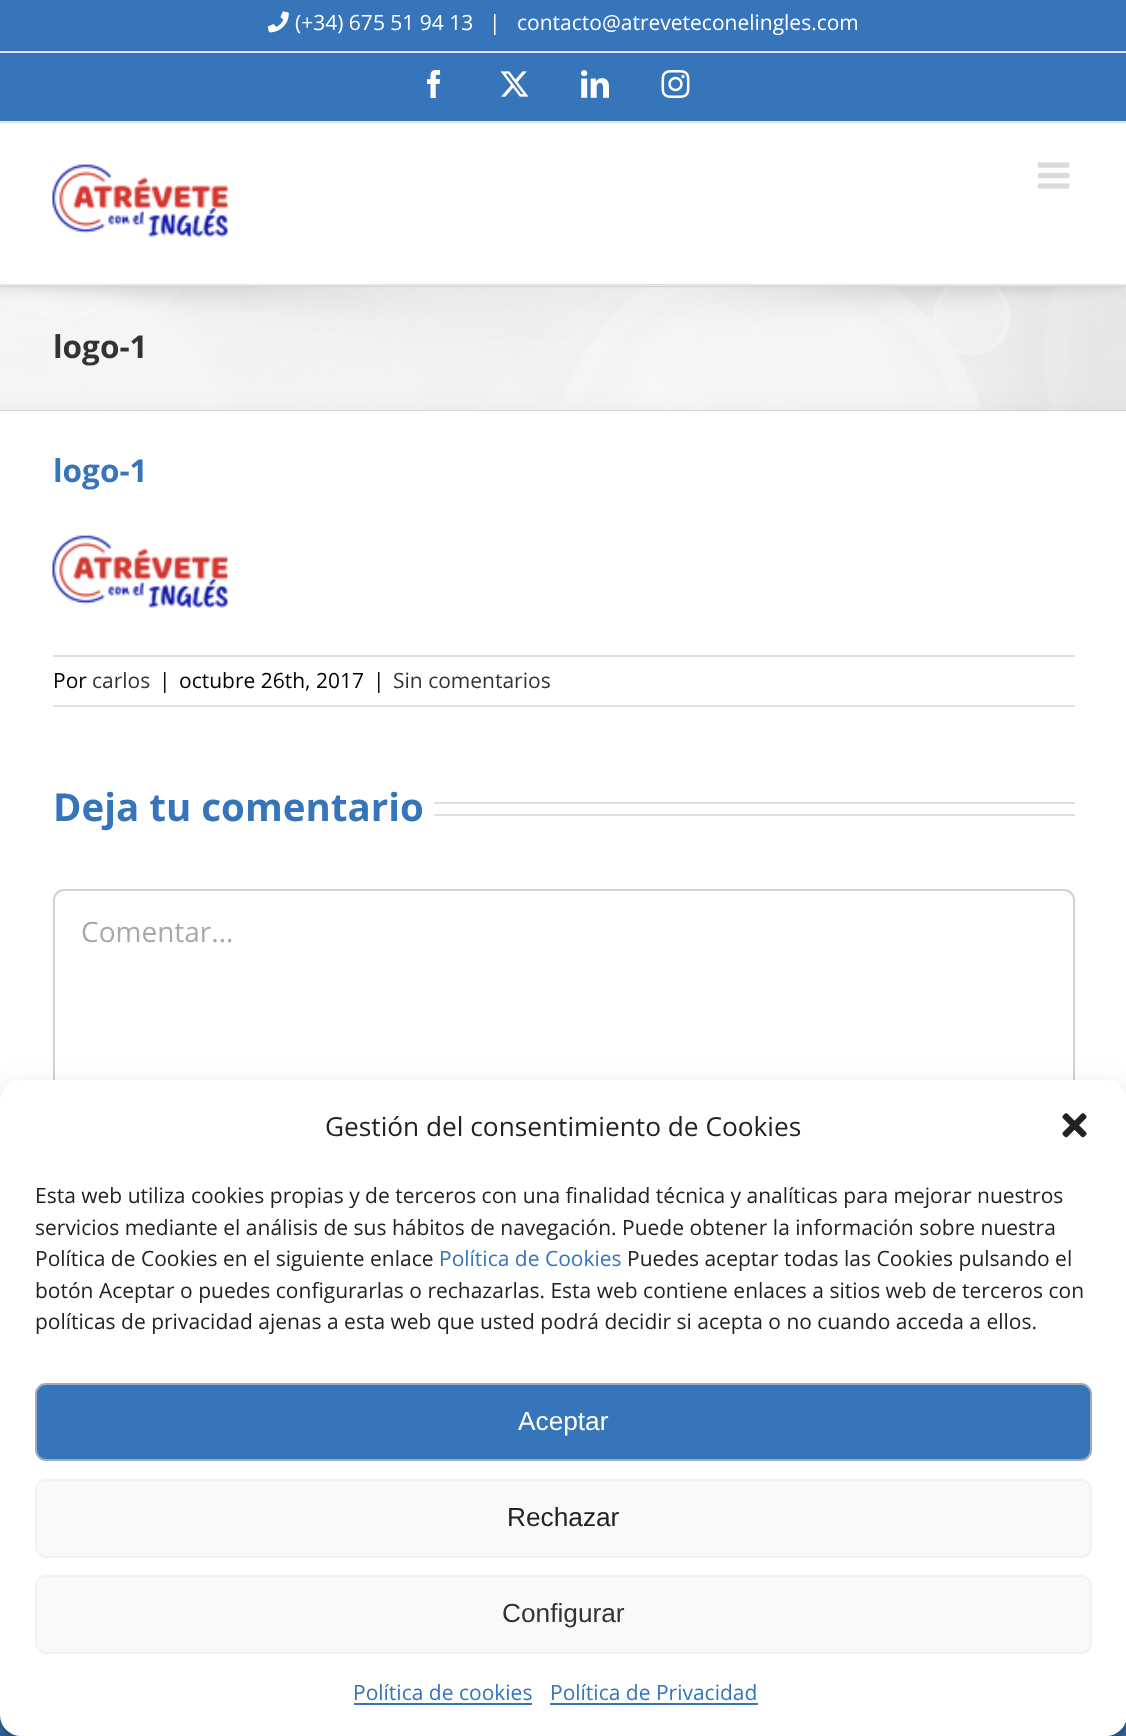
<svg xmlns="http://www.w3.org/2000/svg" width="1126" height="1736">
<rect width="100%" height="100%" fill="#fff"/>
<rect width="1126" height="121" fill="#3675b9"/>
<rect y="121" width="1126" height="2" fill="#e5e5e5"/>
<rect y="51" width="1126" height="2" fill="#e5e5e5"/>
<image x="267" y="11" width="22" height="22" href="media/1.png"/>
<text x="295" y="30" style="font-family:Open Sans;font-size:21px;fill:#fff">(+34) 675 51 94 13</text>
<text x="489" y="30" style="font-family:Open Sans;font-size:21px;fill:#fff">|</text>
<text x="517" y="30" style="font-family:Open Sans;font-size:21px;fill:#fff">contacto@atreveteconelingles.com</text>
<image x="427" y="70" width="14" height="28" href="media/2.png"/>
<image x="500" y="71" width="29" height="26" href="media/3.png"/>
<image x="581" y="70" width="28" height="28" href="media/4.png"/>
<image x="661" y="70" width="29" height="28" href="media/5.png"/>
<rect y="284" width="1126" height="2" fill="#e5e5e5"/>
<image x="52" y="164" width="176" height="73" href="media/6.png"/>
<image x="1037" y="162" width="33" height="27" href="media/7.png"/>
<rect y="287" width="1126" height="123" fill="#f6f6f6"/>
<image x="0" y="287" width="1126" height="123" href="media/8.png"/>
<rect y="286" width="1126" height="1" fill="#d2d3d4"/>
<rect y="410" width="1126" height="1" fill="#d2d3d4"/>
<text x="53" y="358" style="font-family:Open Sans;font-size:31.5px;font-weight:bold;fill:#333">logo-1</text>
<text x="53" y="482" style="font-family:Open Sans;font-size:31.5px;font-weight:bold;fill:#3675b9">logo-1</text>
<image x="52" y="535" width="176" height="73" href="media/6.png"/>
<rect x="53" y="655" width="1022" height="2" fill="#e0dede"/>
<rect x="53" y="705" width="1022" height="2" fill="#e0dede"/>
<text x="53" y="688" style="font-family:Open Sans;font-size:21px;fill:#000">Por</text>
<text x="92" y="688" style="font-family:Open Sans;font-size:21px;fill:#333">carlos</text>
<text x="159" y="688" style="font-family:Open Sans;font-size:21px;fill:#000">|</text>
<text x="179" y="688" style="font-family:Open Sans;font-size:21px;fill:#000">octubre 26th, 2017</text>
<text x="373" y="688" style="font-family:Open Sans;font-size:21px;fill:#000">|</text>
<text x="393" y="688" style="font-family:Open Sans;font-size:21px;fill:#333">Sin comentarios</text>
<text x="53" y="821" style="font-family:Open Sans;font-size:38.5px;font-weight:bold;fill:#3675b9">Deja tu comentario</text>
<rect x="434" y="802" width="641" height="2" fill="#e0dede"/>
<rect x="434" y="814" width="641" height="2" fill="#e0dede"/>
<rect x="54" y="890" width="1020" height="261" rx="10" fill="none" stroke="#d2d2d2" stroke-width="2"/>
<text x="81" y="942" style="font-family:Open Sans;font-size:28px;fill:#aaa9a9">Comentar...</text>
<rect y="1715" width="1126" height="21" fill="#3675b9"/>
<rect y="1090" width="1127" height="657" rx="21" fill="#0000003b" filter="blur(5px)"/>
<rect y="1097" width="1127" height="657" rx="21" fill="#00000030" filter="blur(17.5px)"/>
<rect y="1080" width="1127" height="656" rx="21" fill="#fff"/>
<text x="325" y="1136" style="font-family:Open Sans;font-size:26.25px;fill:#222">Gestión del consentimiento de Cookies</text>
<image x="1062" y="1113" width="25" height="25" href="media/9.png"/>
<text x="35" y="1203" style="font-family:Open Sans;font-size:21px;fill:#222">Esta web utiliza cookies propias y de terceros con una finalidad técnica y analíticas para mejorar nuestros</text>
<text x="35" y="1235" style="font-family:Open Sans;font-size:21px;fill:#222">servicios mediante el análisis de sus hábitos de navegación. Puede obtener la información sobre nuestra</text>
<text x="35" y="1266" style="font-family:Open Sans;font-size:21px;fill:#222">Política de Cookies en el siguiente enlace</text>
<text x="439" y="1266" style="font-family:Open Sans;font-size:21px;fill:#3675b9">Política de Cookies</text>
<text x="627" y="1266" style="font-family:Open Sans;font-size:21px;fill:#222">Puedes aceptar todas las Cookies pulsando el</text>
<text x="35" y="1298" style="font-family:Open Sans;font-size:21px;fill:#222">botón Aceptar o puedes configurarlas o rechazarlas. Esta web contiene enlaces a sitios web de terceros con</text>
<text x="35" y="1329" style="font-family:Open Sans;font-size:21px;fill:#222">políticas de privacidad ajenas a esta web que usted podrá decidir si acepta o no cuando acceda a ellos.</text>
<rect x="36" y="1384" width="1055" height="76" rx="10" fill="#3675b9" stroke="#9eabba" stroke-width="2"/>
<text x="518" y="1430" style="font-family:Liberation Sans;font-size:26.25px;fill:#fff">Aceptar</text>
<rect x="36" y="1480" width="1055" height="77" rx="10" fill="#f9f9f9" stroke="#f2f2f2" stroke-width="2"/>
<text x="507" y="1526" style="font-family:Liberation Sans;font-size:26.25px;fill:#222">Rechazar</text>
<rect x="36" y="1576" width="1055" height="77" rx="10" fill="#f9f9f9" stroke="#f2f2f2" stroke-width="2"/>
<text x="502" y="1622" style="font-family:Liberation Sans;font-size:26.25px;fill:#333">Configurar</text>
<text x="353" y="1700" style="font-family:Open Sans;font-size:21px;fill:#3675b9">Política de cookies</text>
<rect x="354" y="1703" width="178" height="2" fill="#3675b9"/>
<text x="550" y="1700" style="font-family:Open Sans;font-size:21px;fill:#3675b9">Política de Privacidad</text>
<rect x="550" y="1703" width="208" height="2" fill="#3675b9"/>
</svg>
